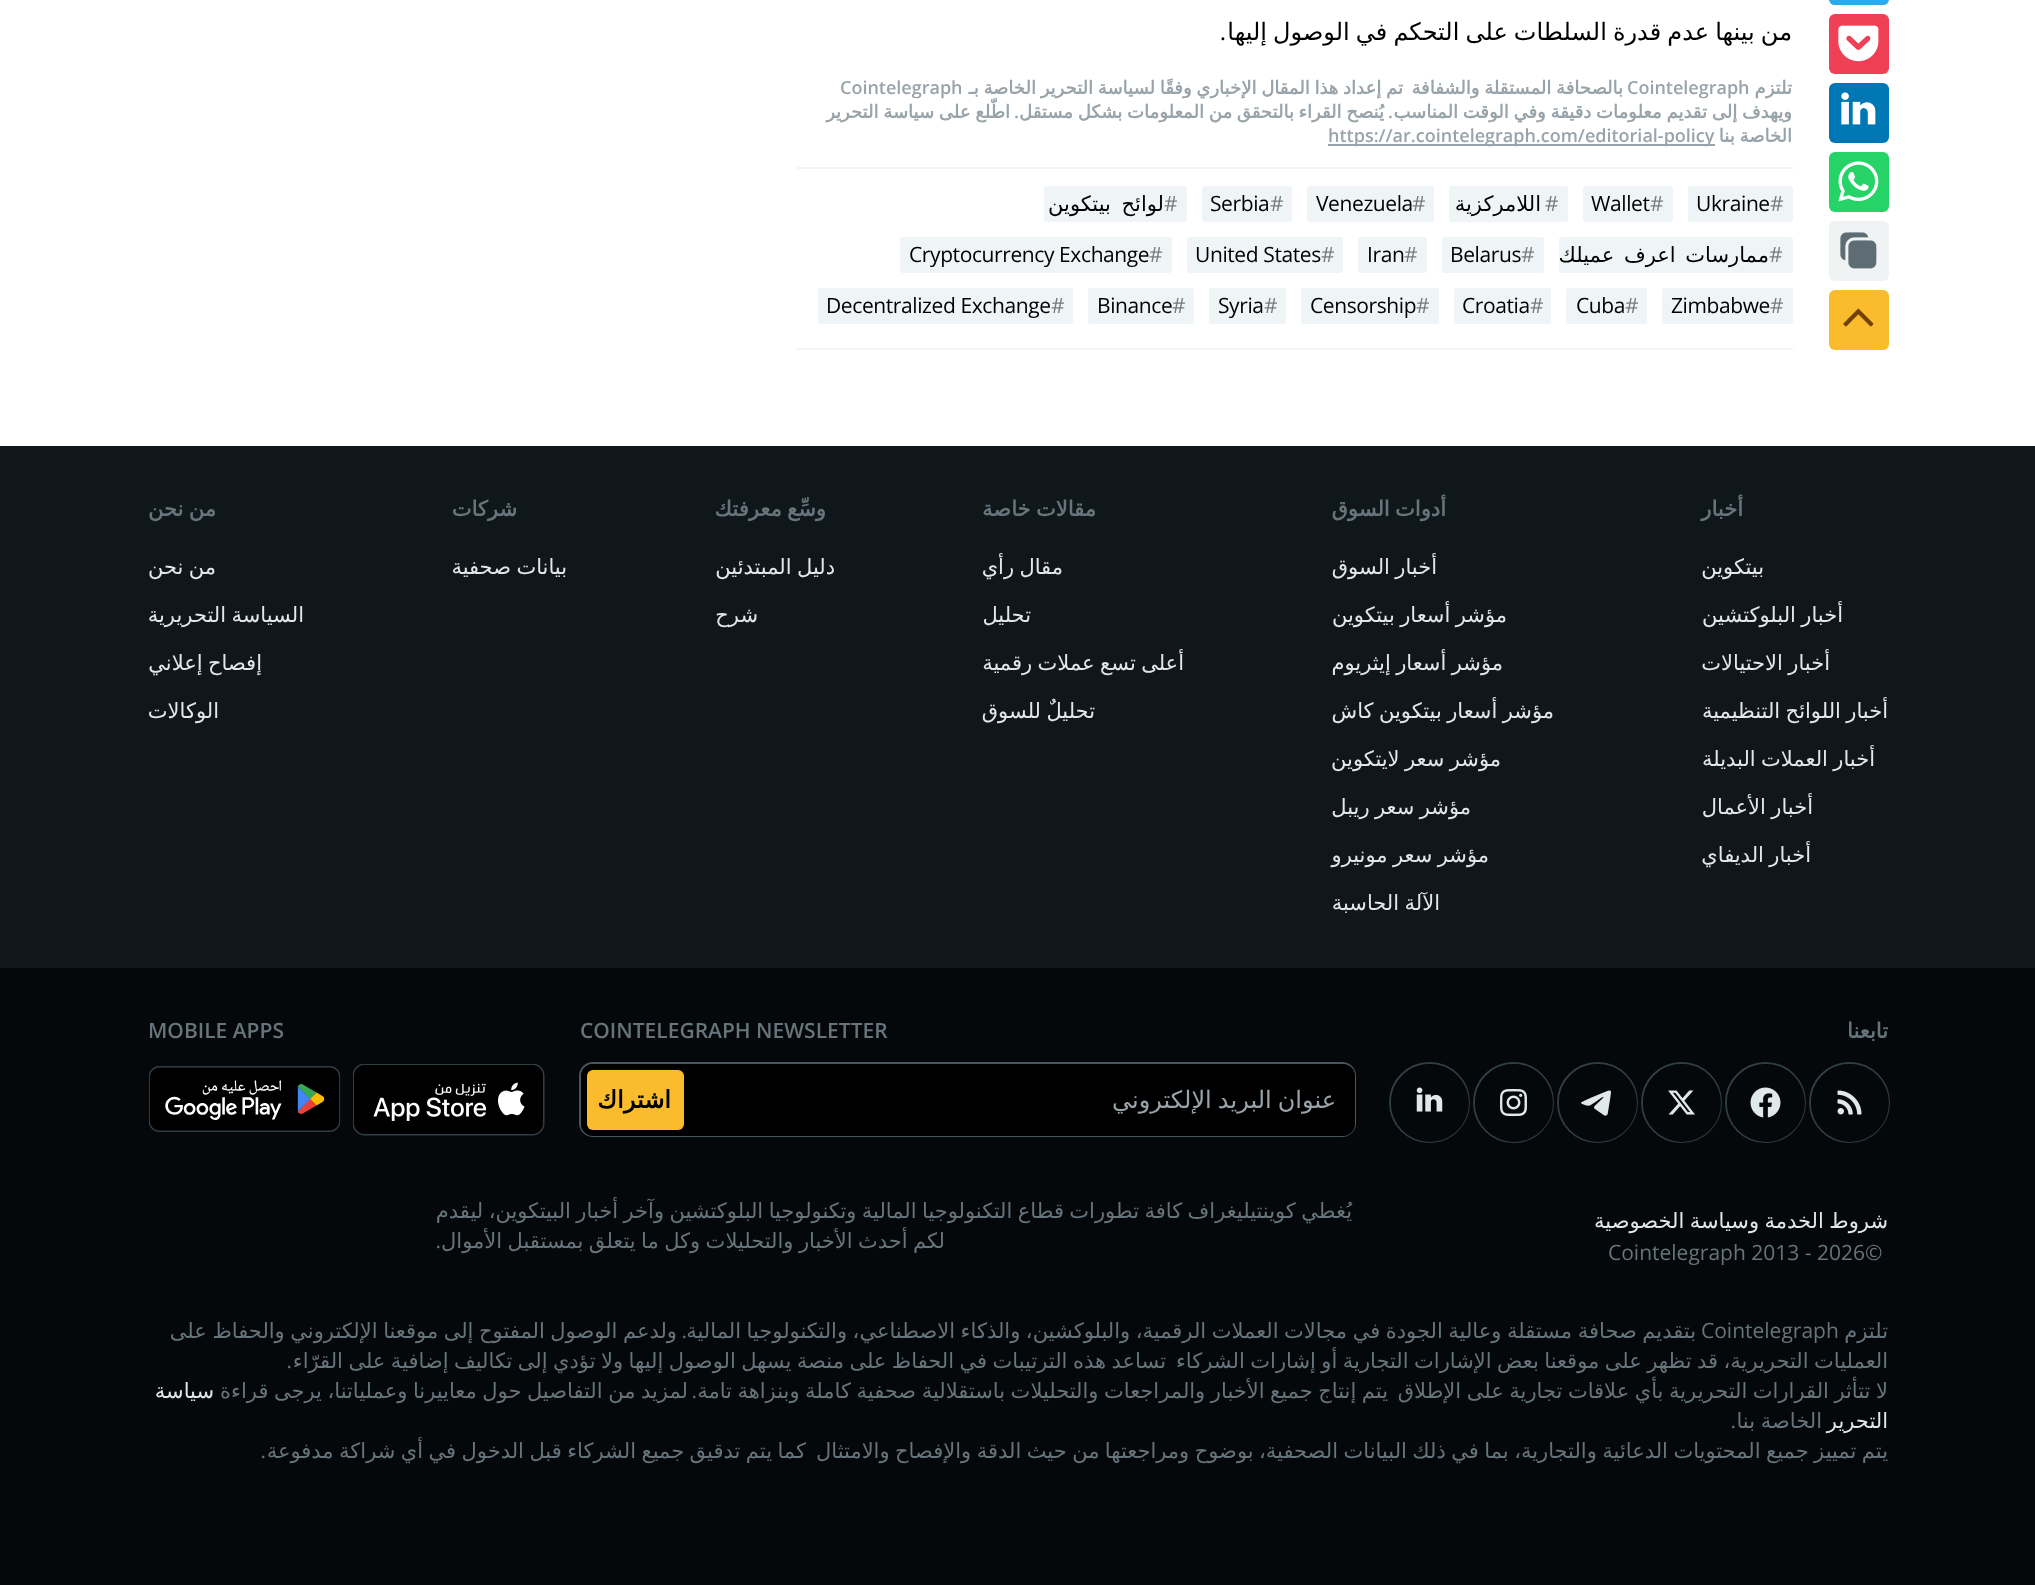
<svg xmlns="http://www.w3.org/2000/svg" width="2035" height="1585">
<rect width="100%" height="100%" fill="#fff"/>
<rect x="1829" y="-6" width="60" height="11" rx="6" fill="#2aabee"/>
<rect x="1829" y="14" width="60" height="60" rx="6" fill="#ef4056"/>
<image x="1838" y="25" width="41" height="37" href="media/1.png"/>
<rect x="1829" y="83" width="60" height="60" rx="6" fill="#0077b5"/>
<image x="1841" y="92" width="35" height="33" href="media/2.png"/>
<rect x="1829" y="152" width="60" height="60" rx="6" fill="#25d366"/>
<image x="1838" y="161" width="41" height="41" href="media/3.png"/>
<rect x="1829" y="221" width="60" height="60" rx="6" fill="#f0f3f4"/>
<image x="1840" y="232" width="37" height="37" href="media/4.png"/>
<rect x="1829" y="290" width="60" height="60" rx="6" fill="#fabc2c"/>
<image x="1843" y="308" width="31" height="19" href="media/5.png"/>
<text x="1792" y="40" word-spacing="-1.5" style="font-family:DejaVu Sans;font-size:24px;direction:rtl;fill:#000">من بينها عدم قدرة السلطات على التحكم في الوصول إليها</text>
<text x="1226" y="40" style="font-family:Open Sans;font-size:24px;direction:rtl;fill:#000">.</text>
<text x="1792" y="94" style="font-family:DejaVu Sans;font-size:18px;font-weight:bold;direction:rtl;fill:#98a4aa">تلتزم</text>
<text x="1627" y="94" style="font-family:Open Sans;font-size:18px;font-weight:600;fill:#98a4aa">Cointelegraph</text>
<text x="1623" y="94" word-spacing="-1" style="font-family:DejaVu Sans;font-size:18px;font-weight:bold;direction:rtl;fill:#98a4aa">بالصحافة المستقلة والشفافة</text>
<text x="1403" y="94" word-spacing="-1" style="font-family:DejaVu Sans;font-size:18px;font-weight:bold;direction:rtl;fill:#98a4aa">تم إعداد هذا المقال الإخباري وفقًا لسياسة التحرير الخاصة بـ</text>
<text x="840" y="94" style="font-family:Open Sans;font-size:18px;font-weight:600;fill:#98a4aa">Cointelegraph</text>
<text x="1792" y="118" word-spacing="-1" style="font-family:DejaVu Sans;font-size:18px;font-weight:bold;direction:rtl;fill:#98a4aa">ويهدف إلى تقديم معلومات دقيقة وفي الوقت المناسب</text>
<text x="1384" y="118" word-spacing="-1" style="font-family:DejaVu Sans;font-size:18px;font-weight:bold;direction:rtl;fill:#98a4aa">يُنصح القراء بالتحقق من المعلومات بشكل مستقل</text>
<text x="1019" y="118" style="font-family:Open Sans;font-size:18px;font-weight:600;direction:rtl;fill:#98a4aa">.</text>
<text x="1010" y="118" word-spacing="-1" style="font-family:DejaVu Sans;font-size:18px;font-weight:bold;direction:rtl;fill:#98a4aa">اطّلع على سياسة التحرير</text>
<text x="1393" y="118" style="font-family:Open Sans;font-size:18px;font-weight:600;direction:rtl;fill:#98a4aa">.</text>
<text x="1792" y="142" word-spacing="-1" style="font-family:DejaVu Sans;font-size:18px;font-weight:bold;direction:rtl;fill:#98a4aa">الخاصة بنا</text>
<rect x="1328" y="144" width="387" height="2" fill="#98a4aa"/>
<text x="1328" y="142" style="font-family:Open Sans;font-size:18px;font-weight:600;fill:#98a4aa">https://ar.cointelegraph.com/editorial-policy</text>
<rect x="797" y="167" width="996" height="2" fill="#eff5f6"/>
<rect x="1688" y="186" width="105" height="36" rx="3" fill="#eff5f6"/>
<text x="1770" y="211" style="font-family:Open Sans;font-size:21px;letter-spacing:-0.4px;fill:#787b7b">#</text>
<text x="1696" y="211" style="font-family:Open Sans;font-size:21px;letter-spacing:-0.4px;fill:#000">Ukraine</text>
<rect x="1583" y="186" width="90" height="36" rx="3" fill="#eff5f6"/>
<text x="1650" y="211" style="font-family:Open Sans;font-size:21px;letter-spacing:-0.4px;fill:#787b7b">#</text>
<text x="1591" y="211" style="font-family:Open Sans;font-size:21px;letter-spacing:-0.4px;fill:#000">Wallet</text>
<rect x="1449" y="186" width="119" height="36" rx="3" fill="#eff5f6"/>
<text x="1545" y="211" style="font-family:Open Sans;font-size:21px;letter-spacing:-0.4px;fill:#787b7b">#</text>
<text x="1541" y="211" style="font-family:DejaVu Sans;font-size:21px;letter-spacing:-0.4px;direction:rtl;fill:#000">اللامركزية</text>
<rect x="1307" y="186" width="127" height="36" rx="3" fill="#eff5f6"/>
<text x="1412" y="211" style="font-family:Open Sans;font-size:21px;letter-spacing:-0.4px;fill:#787b7b">#</text>
<text x="1316" y="211" style="font-family:Open Sans;font-size:21px;letter-spacing:-0.4px;fill:#000">Venezuela</text>
<rect x="1202" y="186" width="90" height="36" rx="3" fill="#eff5f6"/>
<text x="1270" y="211" style="font-family:Open Sans;font-size:21px;letter-spacing:-0.4px;fill:#787b7b">#</text>
<text x="1210" y="211" style="font-family:Open Sans;font-size:21px;letter-spacing:-0.4px;fill:#000">Serbia</text>
<rect x="1044" y="186" width="143" height="36" rx="3" fill="#eff5f6"/>
<text x="1164" y="211" style="font-family:Open Sans;font-size:21px;letter-spacing:-0.4px;fill:#787b7b">#</text>
<text x="1164" y="211" word-spacing="4" style="font-family:DejaVu Sans;font-size:21px;letter-spacing:-0.4px;direction:rtl;fill:#000">لوائح بيتكوين</text>
<rect x="1559" y="237" width="234" height="36" rx="3" fill="#eff5f6"/>
<text x="1769" y="262" style="font-family:Open Sans;font-size:21px;letter-spacing:-0.4px;fill:#787b7b">#</text>
<text x="1769" y="262" word-spacing="3" style="font-family:DejaVu Sans;font-size:21px;letter-spacing:-0.4px;direction:rtl;fill:#000">ممارسات اعرف عميلك</text>
<rect x="1442" y="237" width="102" height="36" rx="3" fill="#eff5f6"/>
<text x="1521" y="262" style="font-family:Open Sans;font-size:21px;letter-spacing:-0.4px;fill:#787b7b">#</text>
<text x="1450" y="262" style="font-family:Open Sans;font-size:21px;letter-spacing:-0.4px;fill:#000">Belarus</text>
<rect x="1358" y="237" width="69" height="36" rx="3" fill="#eff5f6"/>
<text x="1404" y="262" style="font-family:Open Sans;font-size:21px;letter-spacing:-0.4px;fill:#787b7b">#</text>
<text x="1367" y="262" style="font-family:Open Sans;font-size:21px;letter-spacing:-0.4px;fill:#000">Iran</text>
<rect x="1187" y="237" width="156" height="36" rx="3" fill="#eff5f6"/>
<text x="1321" y="262" style="font-family:Open Sans;font-size:21px;letter-spacing:-0.4px;fill:#787b7b">#</text>
<text x="1195" y="262" style="font-family:Open Sans;font-size:21px;letter-spacing:-0.4px;fill:#000">United States</text>
<rect x="900" y="237" width="272" height="36" rx="3" fill="#eff5f6"/>
<text x="1149" y="262" style="font-family:Open Sans;font-size:21px;letter-spacing:-0.4px;fill:#787b7b">#</text>
<text x="909" y="262" style="font-family:Open Sans;font-size:21px;letter-spacing:-0.4px;fill:#000">Cryptocurrency Exchange</text>
<rect x="1662" y="288" width="131" height="36" rx="3" fill="#eff5f6"/>
<text x="1770" y="313" style="font-family:Open Sans;font-size:21px;letter-spacing:-0.4px;fill:#787b7b">#</text>
<text x="1671" y="313" style="font-family:Open Sans;font-size:21px;letter-spacing:-0.4px;fill:#000">Zimbabwe</text>
<rect x="1566" y="288" width="81" height="36" rx="3" fill="#eff5f6"/>
<text x="1625" y="313" style="font-family:Open Sans;font-size:21px;letter-spacing:-0.4px;fill:#787b7b">#</text>
<text x="1576" y="313" style="font-family:Open Sans;font-size:21px;letter-spacing:-0.4px;fill:#000">Cuba</text>
<rect x="1454" y="288" width="97" height="36" rx="3" fill="#eff5f6"/>
<text x="1530" y="313" style="font-family:Open Sans;font-size:21px;letter-spacing:-0.4px;fill:#787b7b">#</text>
<text x="1462" y="313" style="font-family:Open Sans;font-size:21px;letter-spacing:-0.4px;fill:#000">Croatia</text>
<rect x="1301" y="288" width="138" height="36" rx="3" fill="#eff5f6"/>
<text x="1416" y="313" style="font-family:Open Sans;font-size:21px;letter-spacing:-0.4px;fill:#787b7b">#</text>
<text x="1310" y="313" style="font-family:Open Sans;font-size:21px;letter-spacing:-0.4px;fill:#000">Censorship</text>
<rect x="1209" y="288" width="77" height="36" rx="3" fill="#eff5f6"/>
<text x="1264" y="313" style="font-family:Open Sans;font-size:21px;letter-spacing:-0.4px;fill:#787b7b">#</text>
<text x="1218" y="313" style="font-family:Open Sans;font-size:21px;letter-spacing:-0.4px;fill:#000">Syria</text>
<rect x="1088" y="288" width="106" height="36" rx="3" fill="#eff5f6"/>
<text x="1172" y="313" style="font-family:Open Sans;font-size:21px;letter-spacing:-0.4px;fill:#787b7b">#</text>
<text x="1097" y="313" style="font-family:Open Sans;font-size:21px;letter-spacing:-0.4px;fill:#000">Binance</text>
<rect x="818" y="288" width="255" height="36" rx="3" fill="#eff5f6"/>
<text x="1051" y="313" style="font-family:Open Sans;font-size:21px;letter-spacing:-0.4px;fill:#787b7b">#</text>
<text x="826" y="313" style="font-family:Open Sans;font-size:21px;letter-spacing:-0.4px;fill:#000">Decentralized Exchange</text>
<rect x="797" y="348" width="996" height="2" fill="#eff5f6"/>
<rect y="446" width="2035" height="522" fill="#10171b"/>
<text x="1743" y="516" style="font-family:DejaVu Sans;font-size:21px;font-weight:bold;direction:rtl;fill:#66747c">أخبار</text>
<text x="1764" y="574" style="font-family:DejaVu Sans;font-size:21px;direction:rtl;fill:#e1e8ea">بيتكوين</text>
<text x="1843" y="622" word-spacing="-1.25" style="font-family:DejaVu Sans;font-size:21px;direction:rtl;fill:#e1e8ea">أخبار البلوكتشين</text>
<text x="1830" y="670" word-spacing="-1.25" style="font-family:DejaVu Sans;font-size:21px;direction:rtl;fill:#e1e8ea">أخبار الاحتيالات</text>
<text x="1888" y="718" word-spacing="-1.25" style="font-family:DejaVu Sans;font-size:21px;direction:rtl;fill:#e1e8ea">أخبار اللوائح التنظيمية</text>
<text x="1875" y="766" word-spacing="-1.25" style="font-family:DejaVu Sans;font-size:21px;direction:rtl;fill:#e1e8ea">أخبار العملات البديلة</text>
<text x="1813" y="814" word-spacing="-1.25" style="font-family:DejaVu Sans;font-size:21px;direction:rtl;fill:#e1e8ea">أخبار الأعمال</text>
<text x="1811" y="862" word-spacing="-1.25" style="font-family:DejaVu Sans;font-size:21px;direction:rtl;fill:#e1e8ea">أخبار الديفاي</text>
<text x="1446" y="516" word-spacing="-1.25" style="font-family:DejaVu Sans;font-size:21px;font-weight:bold;direction:rtl;fill:#66747c">أدوات السوق</text>
<text x="1437" y="574" word-spacing="-1.25" style="font-family:DejaVu Sans;font-size:21px;direction:rtl;fill:#e1e8ea">أخبار السوق</text>
<text x="1507" y="622" word-spacing="-1.25" style="font-family:DejaVu Sans;font-size:21px;direction:rtl;fill:#e1e8ea">مؤشر أسعار بيتكوين</text>
<text x="1503" y="670" word-spacing="-1.25" style="font-family:DejaVu Sans;font-size:21px;direction:rtl;fill:#e1e8ea">مؤشر أسعار إيثريوم</text>
<text x="1554" y="718" word-spacing="-1.25" style="font-family:DejaVu Sans;font-size:21px;direction:rtl;fill:#e1e8ea">مؤشر أسعار بيتكوين كاش</text>
<text x="1501" y="766" word-spacing="-1.25" style="font-family:DejaVu Sans;font-size:21px;direction:rtl;fill:#e1e8ea">مؤشر سعر لايتكوين</text>
<text x="1471" y="814" word-spacing="-1.25" style="font-family:DejaVu Sans;font-size:21px;direction:rtl;fill:#e1e8ea">مؤشر سعر ريبل</text>
<text x="1489" y="862" word-spacing="-1.25" style="font-family:DejaVu Sans;font-size:21px;direction:rtl;fill:#e1e8ea">مؤشر سعر مونيرو</text>
<text x="1440" y="910" word-spacing="-1.25" style="font-family:DejaVu Sans;font-size:21px;direction:rtl;fill:#e1e8ea">الآلة الحاسبة</text>
<text x="1096" y="516" word-spacing="-1.25" style="font-family:DejaVu Sans;font-size:21px;font-weight:bold;direction:rtl;fill:#66747c">مقالات خاصة</text>
<text x="1063" y="574" word-spacing="-1.25" style="font-family:DejaVu Sans;font-size:21px;direction:rtl;fill:#e1e8ea">مقال رأي</text>
<text x="1031" y="622" style="font-family:DejaVu Sans;font-size:21px;direction:rtl;fill:#e1e8ea">تحليل</text>
<text x="1184" y="670" word-spacing="-1.25" style="font-family:DejaVu Sans;font-size:21px;direction:rtl;fill:#e1e8ea">أعلى تسع عملات رقمية</text>
<text x="1095" y="718" word-spacing="-1.25" style="font-family:DejaVu Sans;font-size:21px;direction:rtl;fill:#e1e8ea">تحليلٌ للسوق</text>
<text x="826" y="516" word-spacing="-1.25" style="font-family:DejaVu Sans;font-size:21px;font-weight:bold;direction:rtl;fill:#66747c">وسِّع معرفتك</text>
<text x="835" y="574" word-spacing="-1.25" style="font-family:DejaVu Sans;font-size:21px;direction:rtl;fill:#e1e8ea">دليل المبتدئين</text>
<text x="758" y="622" style="font-family:DejaVu Sans;font-size:21px;direction:rtl;fill:#e1e8ea">شرح</text>
<text x="517" y="516" style="font-family:DejaVu Sans;font-size:21px;font-weight:bold;direction:rtl;fill:#66747c">شركات</text>
<text x="567" y="574" word-spacing="-1.25" style="font-family:DejaVu Sans;font-size:21px;direction:rtl;fill:#e1e8ea">بيانات صحفية</text>
<text x="216" y="516" word-spacing="-1.25" style="font-family:DejaVu Sans;font-size:21px;font-weight:bold;direction:rtl;fill:#66747c">من نحن</text>
<text x="216" y="574" word-spacing="-1.25" style="font-family:DejaVu Sans;font-size:21px;direction:rtl;fill:#e1e8ea">من نحن</text>
<text x="304" y="622" word-spacing="-1.25" style="font-family:DejaVu Sans;font-size:21px;direction:rtl;fill:#e1e8ea">السياسة التحريرية</text>
<text x="262" y="670" word-spacing="-1.25" style="font-family:DejaVu Sans;font-size:21px;direction:rtl;fill:#e1e8ea">إفصاح إعلاني</text>
<text x="219" y="718" style="font-family:DejaVu Sans;font-size:21px;direction:rtl;fill:#e1e8ea">الوكالات</text>
<rect y="968" width="2035" height="617" fill="#04080b"/>
<text x="1888" y="1038" style="font-family:DejaVu Sans;font-size:21px;font-weight:bold;direction:rtl;fill:#66747c">تابعنا</text>
<circle cx="1849.5" cy="1102.5" r="39.5" fill="none" stroke="#303d43" stroke-width="2"/>
<circle cx="1850" cy="1103" r="39" fill="#04080b"/>
<image x="1837" y="1090" width="25" height="25" href="media/6.png"/>
<circle cx="1765.5" cy="1102.5" r="39.5" fill="none" stroke="#303d43" stroke-width="2"/>
<circle cx="1766" cy="1103" r="39" fill="#04080b"/>
<image x="1750" y="1087" width="31" height="31" href="media/7.png"/>
<circle cx="1681.5" cy="1102.5" r="39.5" fill="none" stroke="#303d43" stroke-width="2"/>
<circle cx="1682" cy="1103" r="39" fill="#04080b"/>
<image x="1668" y="1090" width="27" height="25" href="media/8.png"/>
<circle cx="1597.5" cy="1102.5" r="39.5" fill="none" stroke="#303d43" stroke-width="2"/>
<circle cx="1598" cy="1103" r="39" fill="#04080b"/>
<image x="1581" y="1090" width="30" height="26" href="media/9.png"/>
<circle cx="1513.5" cy="1102.5" r="39.5" fill="none" stroke="#303d43" stroke-width="2"/>
<circle cx="1514" cy="1103" r="39" fill="#04080b"/>
<image x="1500" y="1089" width="27" height="28" href="media/10.png"/>
<circle cx="1429.5" cy="1102.5" r="39.5" fill="none" stroke="#303d43" stroke-width="2"/>
<circle cx="1430" cy="1103" r="39" fill="#04080b"/>
<image x="1416" y="1087" width="27" height="25" href="media/11.png"/>
<text x="1888" y="1228" word-spacing="-1.25" style="font-family:DejaVu Sans;font-size:21px;direction:rtl;fill:#e1e8ea">شروط الخدمة وسياسة الخصوصية</text>
<text x="1608" y="1260" style="font-family:Open Sans;font-size:21px;fill:#66747c">Cointelegraph 2013 - 2026©</text>
<text x="580" y="1038" style="font-family:Open Sans;font-size:21px;font-weight:600;fill:#66747c">COINTELEGRAPH NEWSLETTER</text>
<rect x="580" y="1063" width="775" height="73" rx="13" fill="none" stroke="#48575d" stroke-width="2"/>
<rect x="581" y="1064" width="774" height="72" rx="12" fill="#000"/>
<text x="1336" y="1108" word-spacing="-1.5" style="font-family:DejaVu Sans;font-size:24px;direction:rtl;fill:#98a4aa">عنوان البريد الإلكتروني</text>
<rect x="587" y="1070" width="97" height="60" rx="6" fill="#fabc2c"/>
<text x="671" y="1108" style="font-family:DejaVu Sans;font-size:24px;font-weight:bold;direction:rtl;fill:#000">اشتراك</text>
<text x="148" y="1038" style="font-family:Open Sans;font-size:21px;font-weight:600;fill:#66747c">MOBILE APPS</text>
<image x="353" y="1064" width="192" height="72" href="media/12.png"/>
<image x="149" y="1066" width="192" height="66" href="media/13.png"/>
<text x="1352" y="1218" word-spacing="-1.25" style="font-family:DejaVu Sans;font-size:21px;direction:rtl;fill:#66747c">يُغطي كوينتيليغراف كافة تطورات قطاع التكنولوجيا المالية وتكنولوجيا البلوكتشين وآخر أخبار البيتكوين، ليقدم</text>
<text x="945" y="1248" word-spacing="-1.25" style="font-family:DejaVu Sans;font-size:21px;direction:rtl;fill:#66747c">لكم أحدث الأخبار والتحليلات وكل ما يتعلق بمستقبل الأموال</text>
<text x="441" y="1248" style="font-family:Open Sans;font-size:21px;direction:rtl;fill:#66747c">.</text>
<text x="1888" y="1338" style="font-family:DejaVu Sans;font-size:21px;direction:rtl;fill:#66747c">تلتزم</text>
<text x="1696" y="1338" word-spacing="-1.1" style="font-family:DejaVu Sans;font-size:21px;direction:rtl;fill:#66747c">بتقديم صحافة مستقلة وعالية الجودة في مجالات العملات الرقمية، والبلوكشين، والذكاء الاصطناعي، والتكنولوجيا المالية</text>
<text x="1701" y="1338" style="font-family:Open Sans;font-size:21px;fill:#66747c">Cointelegraph</text>
<text x="677" y="1338" word-spacing="-1.1" style="font-family:DejaVu Sans;font-size:21px;direction:rtl;fill:#66747c">ولدعم الوصول المفتوح إلى موقعنا الإلكتروني والحفاظ على</text>
<text x="687" y="1338" style="font-family:Open Sans;font-size:21px;direction:rtl;fill:#66747c">.</text>
<text x="1888" y="1368" word-spacing="-1.2" style="font-family:DejaVu Sans;font-size:21px;direction:rtl;fill:#66747c">العمليات التحريرية، قد تظهر على موقعنا بعض الإشارات التجارية أو إشارات الشركاء</text>
<text x="1166" y="1368" word-spacing="-1.2" style="font-family:DejaVu Sans;font-size:21px;direction:rtl;fill:#66747c">تساعد هذه الترتيبات في الحفاظ على منصة يسهل الوصول إليها ولا تؤدي إلى تكاليف إضافية على القرّاء</text>
<text x="292" y="1368" style="font-family:Open Sans;font-size:21px;direction:rtl;fill:#66747c">.</text>
<text x="1888" y="1398" word-spacing="-1.1" style="font-family:DejaVu Sans;font-size:21px;direction:rtl;fill:#66747c">لا تتأثر القرارات التحريرية بأي علاقات تجارية على الإطلاق</text>
<text x="1388" y="1398" word-spacing="-1.1" style="font-family:DejaVu Sans;font-size:21px;direction:rtl;fill:#66747c">يتم إنتاج جميع الأخبار والمراجعات والتحليلات باستقلالية صحفية كاملة وبنزاهة تامة</text>
<text x="688" y="1398" word-spacing="-1.1" style="font-family:DejaVu Sans;font-size:21px;direction:rtl;fill:#66747c">لمزيد من التفاصيل حول معاييرنا وعملياتنا، يرجى قراءة</text>
<text x="697" y="1398" style="font-family:Open Sans;font-size:21px;direction:rtl;fill:#66747c">.</text>
<text x="214" y="1398" style="font-family:DejaVu Sans;font-size:21px;direction:rtl;fill:#e1e8ea">سياسة</text>
<text x="1888" y="1428" style="font-family:DejaVu Sans;font-size:21px;direction:rtl;fill:#e1e8ea">التحرير</text>
<text x="1822" y="1428" word-spacing="-1" style="font-family:DejaVu Sans;font-size:21px;direction:rtl;fill:#66747c">الخاصة بنا</text>
<text x="1736" y="1428" style="font-family:Open Sans;font-size:21px;direction:rtl;fill:#66747c">.</text>
<text x="1888" y="1458" word-spacing="-1.2" style="font-family:DejaVu Sans;font-size:21px;direction:rtl;fill:#66747c">يتم تمييز جميع المحتويات الدعائية والتجارية، بما في ذلك البيانات الصحفية، بوضوح ومراجعتها من حيث الدقة والإفصاح والامتثال</text>
<text x="806" y="1458" word-spacing="-1.2" style="font-family:DejaVu Sans;font-size:21px;direction:rtl;fill:#66747c">كما يتم تدقيق جميع الشركاء قبل الدخول في أي شراكة مدفوعة</text>
<text x="266" y="1458" style="font-family:Open Sans;font-size:21px;direction:rtl;fill:#66747c">.</text>
</svg>
